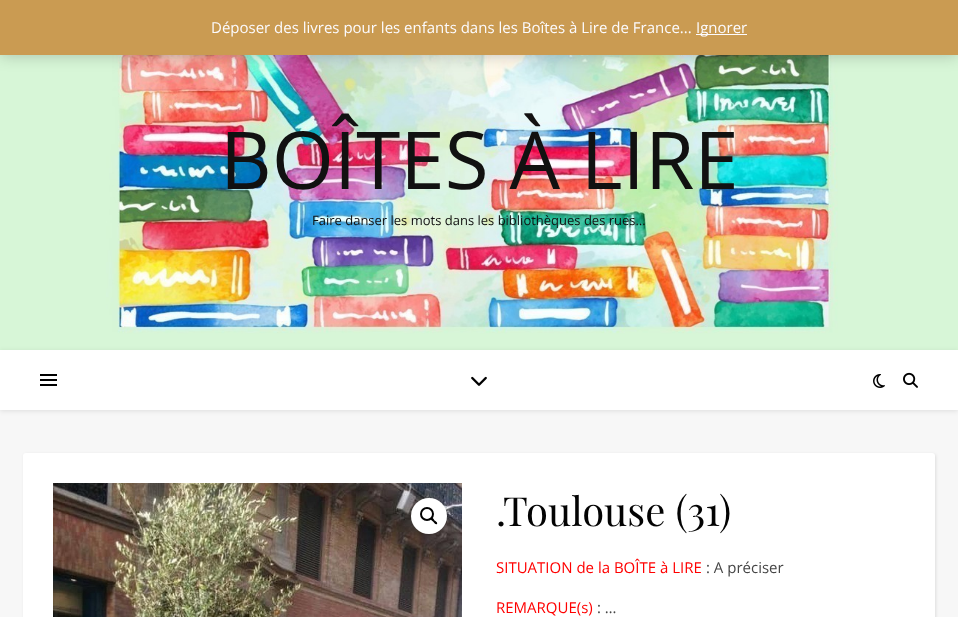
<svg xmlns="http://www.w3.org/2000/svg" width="958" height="617">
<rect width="100%" height="100%" fill="#f7f7f7"/>
<image x="0" y="55" width="958" height="295" href="media/1.png"/>
<rect y="1" width="958" height="55" fill="#00000033" filter="blur(7.5px)"/>
<rect width="958" height="55" fill="#ca9b52"/>
<text x="211" y="33" style="font-family:Open Sans;font-size:15px;fill:#fcfbfe">Déposer des livres pour les enfants dans les Boîtes à Lire de France...</text>
<rect x="696" y="34" width="51" height="1" fill="#fcfbfe"/>
<text x="696" y="33" style="font-family:Open Sans;font-size:15px;fill:#fcfbfe">Ignorer</text>
<text x="220" y="189" style="font-family:Open Sans;font-size:80px;fill:#111">BOÎTES À LIRE</text>
<text x="312" y="225" style="font-family:Open Sans;font-size:13px;fill:#111">Faire danser les mots dans les bibliothèques des rues…</text>
<rect y="351" width="958" height="60" fill="#0000001a" filter="blur(2.5px)"/>
<rect y="350" width="958" height="60" fill="#fff"/>
<rect x="40" y="374" width="17" height="2" fill="#000"/>
<rect x="40" y="379" width="17" height="2" fill="#000"/>
<rect x="40" y="384" width="17" height="2" fill="#000"/>
<image x="471" y="376" width="16" height="10" href="media/2.png"/>
<image x="873" y="374" width="12" height="14" href="media/3.png"/>
<image x="903" y="372" width="15" height="16" href="media/4.png"/>
<rect x="24" y="454" width="912" height="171" rx="3" fill="#0000001a" filter="blur(1.5px)"/>
<rect x="23" y="453" width="912" height="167" rx="3" fill="#fff"/>
<image x="53" y="483" width="409" height="134" href="media/5.png"/>
<circle cx="429" cy="516" r="18" fill="#fff"/>
<circle cx="427" cy="514" r="6" fill="none" stroke="#000" stroke-width="2"/>
<path d="M431 518c1.5-1 3 1.5 3.5 2.5c1 .5 3.5 2 2.5 3.5c-1.5 1-3-1.5-4-2.5c-.5-.5-3-2-2-3.5z" fill="#000"/>
<text x="496" y="526" style="font-family:Playfair Display;font-size:40px;fill:#030303">.Toulouse (31)</text>
<text x="496" y="573" style="font-family:Open Sans;font-size:15px;fill:#f00">SITUATION de la BOÎTE à LIRE</text>
<text x="706" y="573" style="font-family:Open Sans;font-size:15px;fill:#464646">: A préciser</text>
<text x="496" y="613" style="font-family:Open Sans;font-size:15px;fill:#f00">REMARQUE(s)</text>
<text x="597" y="613" style="font-family:Open Sans;font-size:15px;fill:#464646">: …</text>
</svg>
